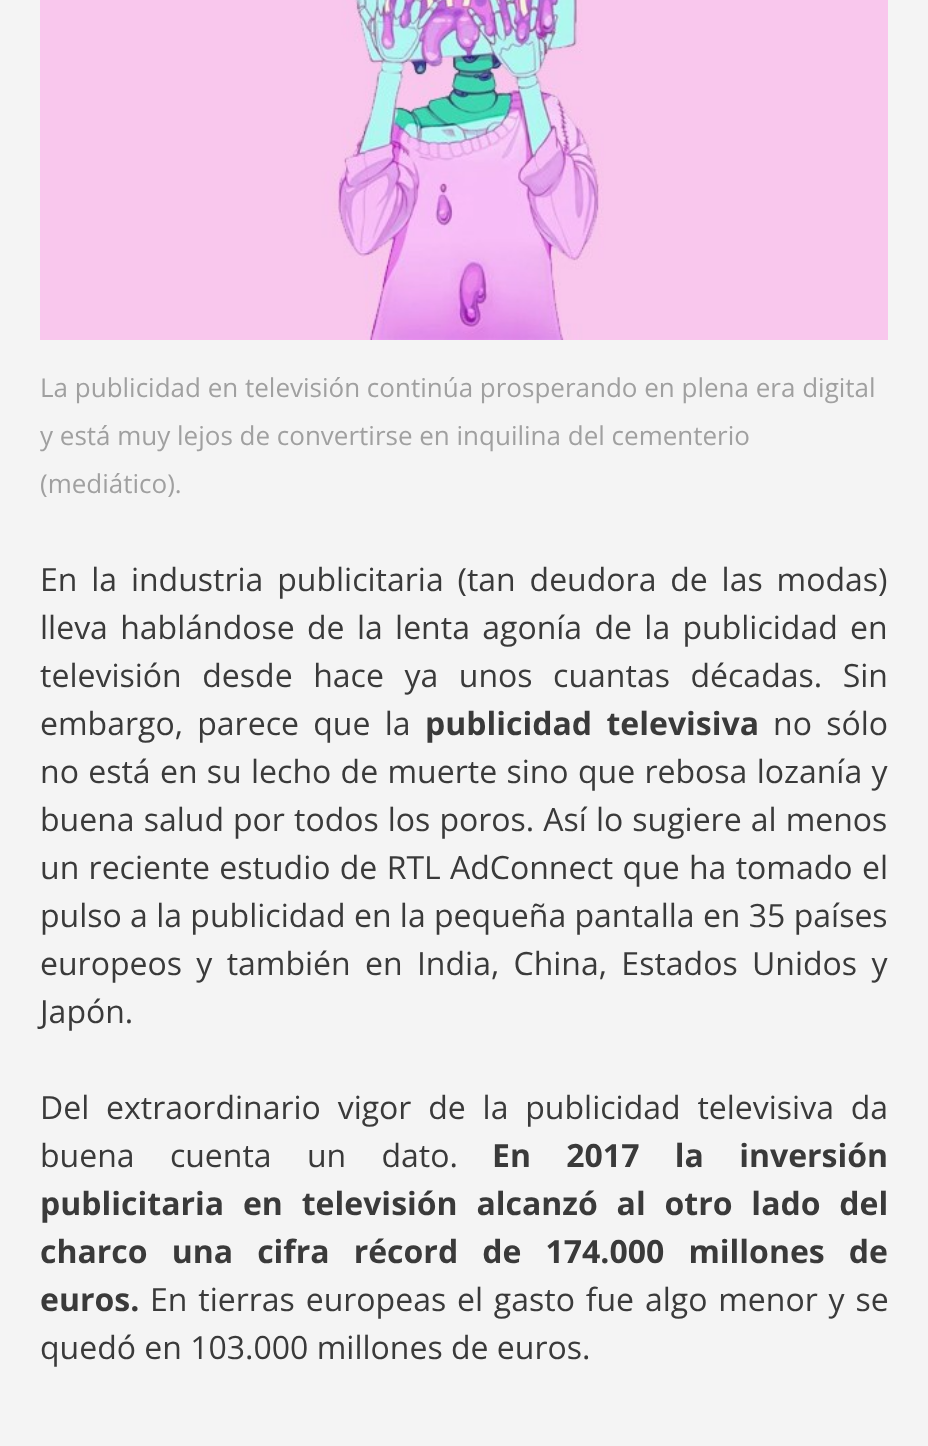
<svg xmlns="http://www.w3.org/2000/svg" width="928" height="1446">
<rect width="100%" height="100%" fill="#f4f4f4"/>
<image x="40" y="0" width="848" height="340" href="media/1.png"/>
<text x="40" y="397" style="font-family:Open Sans;font-size:26px;fill:#a0a0a0">La publicidad en televisión continúa prosperando en plena era digital</text>
<text x="40" y="445" style="font-family:Open Sans;font-size:26px;fill:#a0a0a0">y está muy lejos de convertirse en inquilina del cementerio</text>
<text x="40" y="493" style="font-family:Open Sans;font-size:26px;fill:#a0a0a0">(mediático).</text>
<text x="40" y="591" word-spacing="5.5" style="font-family:Open Sans;font-size:32px;fill:#3a3a3a">En la industria publicitaria (tan deudora de las modas)</text>
<text x="40" y="639" word-spacing="4" style="font-family:Open Sans;font-size:32px;fill:#3a3a3a">lleva hablándose de la lenta agonía de la publicidad en</text>
<text x="40" y="687" word-spacing="12.25" style="font-family:Open Sans;font-size:32px;fill:#3a3a3a">televisión desde hace ya unos cuantas décadas. Sin</text>
<text x="40" y="735" word-spacing="6" style="font-family:Open Sans;font-size:32px;fill:#3a3a3a">embargo, parece que la</text>
<text x="425" y="735" word-spacing="6" style="font-family:Open Sans;font-size:32px;font-weight:bold;fill:#3a3a3a">publicidad televisiva</text>
<text x="773" y="735" word-spacing="6" style="font-family:Open Sans;font-size:32px;fill:#3a3a3a">no sólo</text>
<text x="40" y="783" word-spacing="1" style="font-family:Open Sans;font-size:32px;fill:#3a3a3a">no está en su lecho de muerte sino que rebosa lozanía y</text>
<text x="40" y="831" word-spacing="0.75" style="font-family:Open Sans;font-size:32px;fill:#3a3a3a">buena salud por todos los poros. Así lo sugiere al menos</text>
<text x="40" y="879" word-spacing="1" style="font-family:Open Sans;font-size:32px;fill:#3a3a3a">un reciente estudio de RTL AdConnect que ha tomado el</text>
<text x="40" y="927" style="font-family:Open Sans;font-size:32px;fill:#3a3a3a">pulso a la publicidad en la pequeña pantalla en 35 países</text>
<text x="40" y="975" word-spacing="6" style="font-family:Open Sans;font-size:32px;fill:#3a3a3a">europeos y también en India, China, Estados Unidos y</text>
<text x="40" y="1023" style="font-family:Open Sans;font-size:32px;fill:#3a3a3a">Japón.</text>
<text x="40" y="1119" word-spacing="8.5" style="font-family:Open Sans;font-size:32px;fill:#3a3a3a">Del extraordinario vigor de la publicidad televisiva da</text>
<text x="40" y="1167" word-spacing="27" style="font-family:Open Sans;font-size:32px;fill:#3a3a3a">buena cuenta un dato.</text>
<text x="492" y="1167" word-spacing="27" style="font-family:Open Sans;font-size:32px;font-weight:bold;fill:#3a3a3a">En 2017 la inversión</text>
<text x="40" y="1215" word-spacing="10.5" style="font-family:Open Sans;font-size:32px;font-weight:bold;fill:#3a3a3a">publicitaria en televisión alcanzó al otro lado del</text>
<text x="40" y="1263" word-spacing="15.75" style="font-family:Open Sans;font-size:32px;font-weight:bold;fill:#3a3a3a">charco una cifra récord de 174.000 millones de</text>
<text x="40" y="1311" style="font-family:Open Sans;font-size:32px;font-weight:bold;fill:#3a3a3a">euros.</text>
<text x="150" y="1311" word-spacing="2.5" style="font-family:Open Sans;font-size:32px;fill:#3a3a3a">En tierras europeas el gasto fue algo menor y se</text>
<text x="40" y="1359" style="font-family:Open Sans;font-size:32px;fill:#3a3a3a">quedó en 103.000 millones de euros.</text>
</svg>
